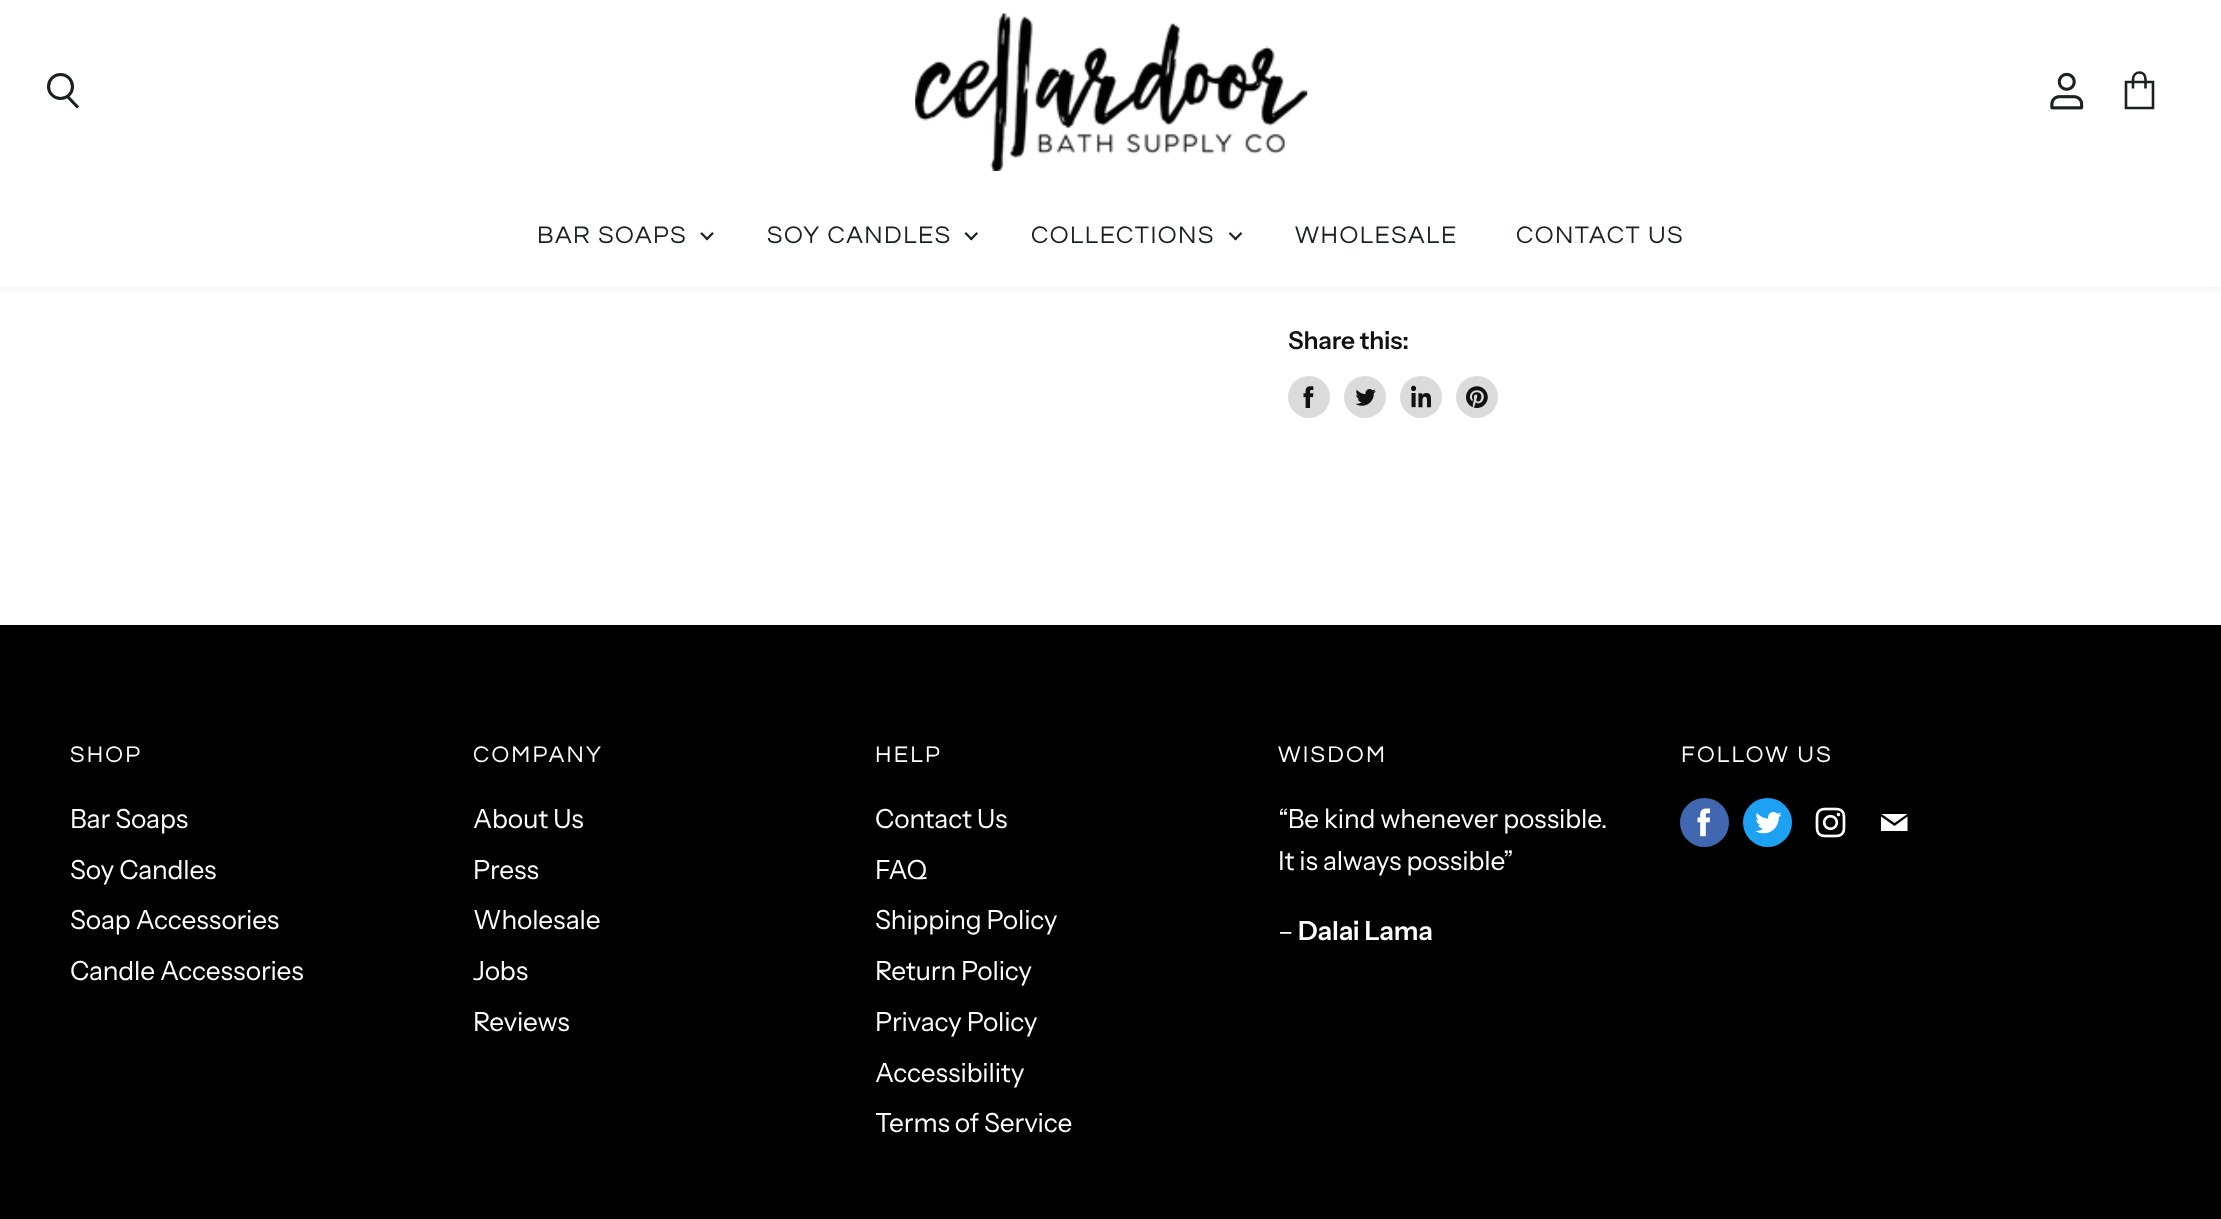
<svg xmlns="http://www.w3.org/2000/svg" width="2221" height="1219">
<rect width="100%" height="100%" fill="#fff"/>
<rect y="2" width="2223" height="287" fill="#bac0be40" filter="blur(3.5px)"/>
<rect width="2221" height="287" fill="#fff"/>
<image x="915" y="13" width="393" height="158" href="media/1.png"/>
<path d="M78 107.5l-10.5-11" fill="none" stroke="#1b2120" stroke-width="3.1"/>
<circle cx="60.5" cy="86.5" r="12" fill="none" stroke="#1b2120" stroke-width="3.1"/>
<image x="2050" y="72" width="34" height="38" href="media/2.png"/>
<path d="M2126 82h27v26h-27zm19.5 6.5v-9c0-4.5-2.5-7-6-7c-3.5 0-6.5 2.5-6.5 7v9" fill="none" stroke="#1b2120" stroke-width="2.6"/>
<text x="537" y="243" style="font-family:Questrial;font-size:25px;letter-spacing:1.5px;fill:#1b2120">BAR SOAPS</text>
<image x="700" y="232" width="14" height="9" href="media/3.png"/>
<text x="767" y="243" style="font-family:Questrial;font-size:25px;letter-spacing:1.5px;fill:#1b2120">SOY CANDLES</text>
<image x="964" y="232" width="14" height="9" href="media/4.png"/>
<text x="1031" y="243" style="font-family:Questrial;font-size:25px;letter-spacing:1.5px;fill:#1b2120">COLLECTIONS</text>
<image x="1229" y="232" width="14" height="9" href="media/5.png"/>
<text x="1295" y="243" style="font-family:Questrial;font-size:25px;letter-spacing:1.5px;fill:#1b2120">WHOLESALE</text>
<text x="1516" y="243" style="font-family:Questrial;font-size:25px;letter-spacing:1.5px;fill:#1b2120">CONTACT US</text>
<text x="1288" y="349" style="font-family:Instrument Sans;font-size:24.5px;font-weight:600;letter-spacing:-0.1px;fill:#111">Share this:</text>
<circle cx="1309" cy="397" r="21" fill="#dbdbdb"/>
<image x="1303" y="386" width="11" height="22" href="media/6.png"/>
<circle cx="1365" cy="397" r="21" fill="#dbdbdb"/>
<image x="1355" y="389" width="21" height="17" href="media/7.png"/>
<circle cx="1421" cy="397" r="21" fill="#dbdbdb"/>
<image x="1411" y="385" width="20" height="23" href="media/8.png"/>
<circle cx="1477" cy="397" r="21" fill="#dbdbdb"/>
<image x="1466" y="386" width="22" height="22" href="media/9.png"/>
<rect y="625" width="2221" height="594" fill="#000"/>
<text x="70" y="762" style="font-family:Questrial;font-size:23.5px;letter-spacing:2.25px;fill:#fff">SHOP</text>
<text x="70" y="828" style="font-family:Instrument Sans;font-size:26.25px;letter-spacing:-0.15px;fill:#fff">Bar Soaps</text>
<text x="70" y="879" style="font-family:Instrument Sans;font-size:26.25px;letter-spacing:-0.15px;fill:#fff">Soy Candles</text>
<text x="70" y="929" style="font-family:Instrument Sans;font-size:26.25px;letter-spacing:-0.15px;fill:#fff">Soap Accessories</text>
<text x="70" y="980" style="font-family:Instrument Sans;font-size:26.25px;letter-spacing:-0.15px;fill:#fff">Candle Accessories</text>
<text x="473" y="762" style="font-family:Questrial;font-size:23.5px;letter-spacing:2.25px;fill:#fff">COMPANY</text>
<text x="473" y="828" style="font-family:Instrument Sans;font-size:26.25px;letter-spacing:-0.15px;fill:#fff">About Us</text>
<text x="473" y="879" style="font-family:Instrument Sans;font-size:26.25px;letter-spacing:-0.15px;fill:#fff">Press</text>
<text x="473" y="929" style="font-family:Instrument Sans;font-size:26.25px;letter-spacing:-0.15px;fill:#fff">Wholesale</text>
<text x="473" y="980" style="font-family:Instrument Sans;font-size:26.25px;letter-spacing:-0.15px;fill:#fff">Jobs</text>
<text x="473" y="1031" style="font-family:Instrument Sans;font-size:26.25px;letter-spacing:-0.15px;fill:#fff">Reviews</text>
<text x="875" y="762" style="font-family:Questrial;font-size:23.5px;letter-spacing:2.25px;fill:#fff">HELP</text>
<text x="875" y="828" style="font-family:Instrument Sans;font-size:26.25px;letter-spacing:-0.15px;fill:#fff">Contact Us</text>
<text x="875" y="879" style="font-family:Instrument Sans;font-size:26.25px;letter-spacing:-0.15px;fill:#fff">FAQ</text>
<text x="875" y="929" style="font-family:Instrument Sans;font-size:26.25px;letter-spacing:-0.15px;fill:#fff">Shipping Policy</text>
<text x="875" y="980" style="font-family:Instrument Sans;font-size:26.25px;letter-spacing:-0.15px;fill:#fff">Return Policy</text>
<text x="875" y="1031" style="font-family:Instrument Sans;font-size:26.25px;letter-spacing:-0.15px;fill:#fff">Privacy Policy</text>
<text x="875" y="1082" style="font-family:Instrument Sans;font-size:26.25px;letter-spacing:-0.15px;fill:#fff">Accessibility</text>
<text x="875" y="1132" style="font-family:Instrument Sans;font-size:26.25px;letter-spacing:-0.15px;fill:#fff">Terms of Service</text>
<text x="1278" y="762" style="font-family:Questrial;font-size:23.5px;letter-spacing:2.25px;fill:#fff">WISDOM</text>
<text x="1278" y="828" style="font-family:Instrument Sans;font-size:26.25px;letter-spacing:-0.15px;fill:#fff">“Be kind whenever possible.</text>
<text x="1278" y="870" style="font-family:Instrument Sans;font-size:26.25px;letter-spacing:-0.15px;fill:#fff">It is always possible”</text>
<text x="1278" y="940" style="font-family:Instrument Sans;font-size:26.25px;letter-spacing:-0.15px;fill:#fff">–</text>
<text x="1298" y="940" style="font-family:Instrument Sans;font-size:26.25px;font-weight:600;letter-spacing:-0.1px;fill:#fff">Dalai Lama</text>
<text x="1681" y="762" style="font-family:Questrial;font-size:23.5px;letter-spacing:2.25px;fill:#fff">FOLLOW US</text>
<circle cx="1704.5" cy="822.5" r="24.5" fill="#4267b1"/>
<image x="1697" y="808" width="14" height="29" href="media/10.png"/>
<circle cx="1767.5" cy="822.5" r="24.5" fill="#1da1f2"/>
<image x="1755" y="812" width="27" height="22" href="media/11.png"/>
<image x="1815" y="807" width="31" height="31" href="media/12.png"/>
<path d="M1907.5 814h-26l13 9zm-13 12l-13.5-9.5v14.5h26.5v-14.5z" fill="#fff" fill-rule="evenodd"/>
</svg>
